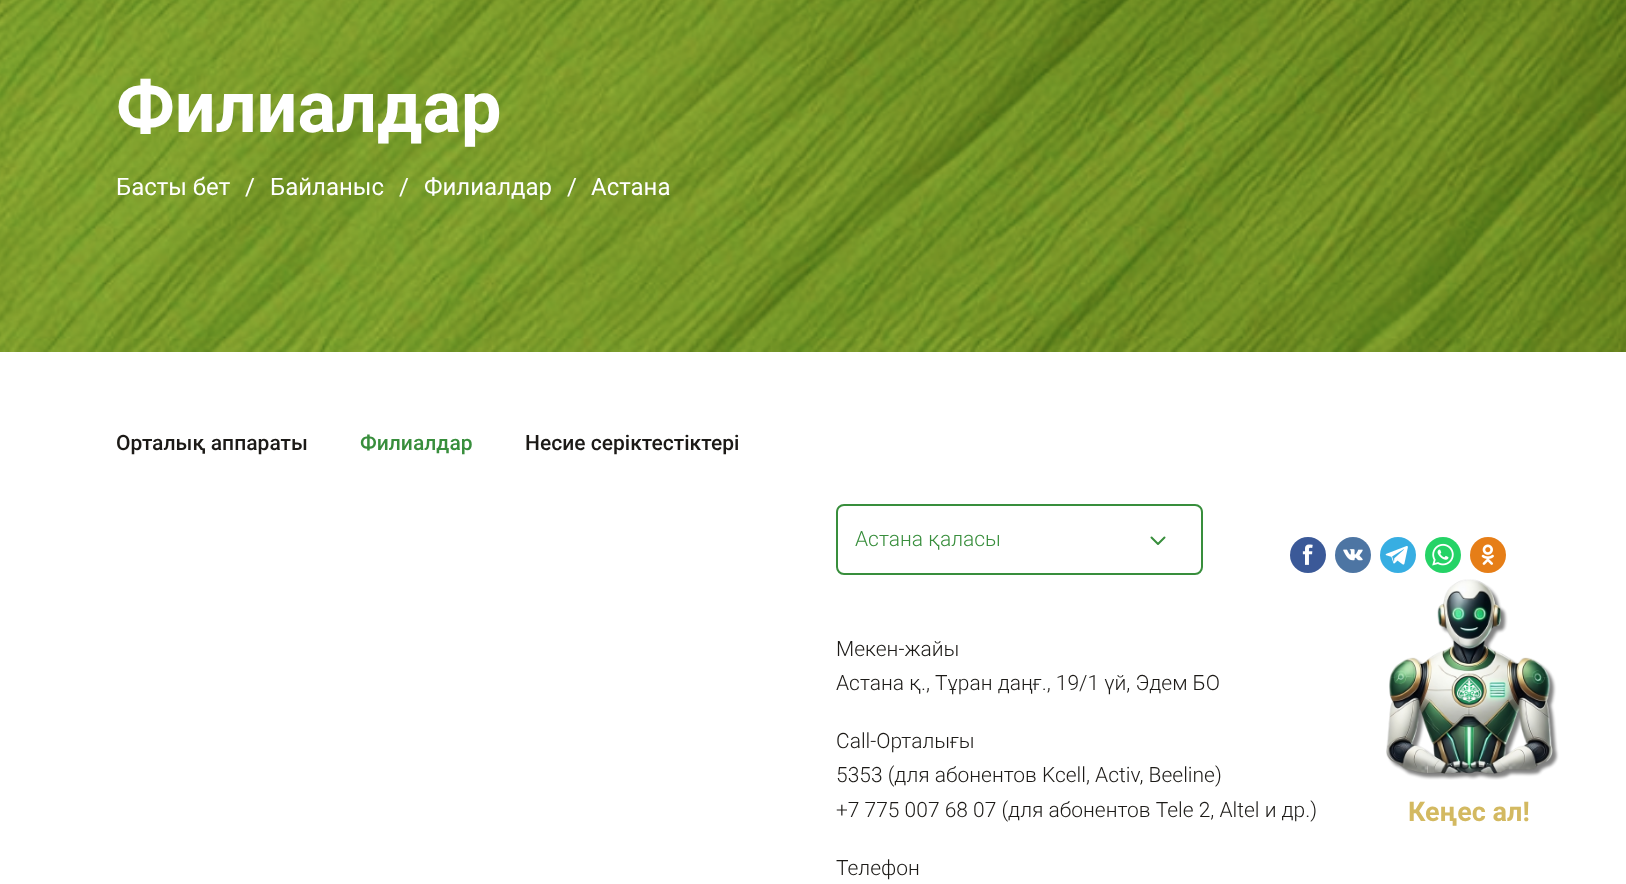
<svg xmlns="http://www.w3.org/2000/svg" width="1626" height="884">
<rect width="100%" height="100%" fill="#fff"/>
<image x="0" y="0" width="1626" height="352" href="media/1.png"/>
<text x="116" y="132" style="font-family:Roboto;font-size:72px;font-weight:bold;fill:#fff">Филиалдар</text>
<text x="116" y="195" style="font-family:Roboto;font-size:24px;fill:#fff">Басты бет</text>
<text x="245" y="195" style="font-family:Roboto;font-size:24px;fill:#fff">/</text>
<text x="270" y="195" style="font-family:Roboto;font-size:24px;fill:#fff">Байланыс</text>
<text x="399" y="195" style="font-family:Roboto;font-size:24px;fill:#fff">/</text>
<text x="424" y="195" style="font-family:Roboto;font-size:24px;fill:#fff">Филиалдар</text>
<text x="567" y="195" style="font-family:Roboto;font-size:24px;fill:#fff">/</text>
<text x="591" y="195" style="font-family:Roboto;font-size:24px;fill:#fff">Астана</text>
<text x="116" y="450" style="font-family:Roboto;font-size:21px;font-weight:500;fill:#1c1a17">Орталық аппараты</text>
<text x="360" y="450" style="font-family:Roboto;font-size:21px;font-weight:500;fill:#388e3c">Филиалдар</text>
<text x="525" y="450" style="font-family:Roboto;font-size:21px;font-weight:500;fill:#1c1a17">Несие серіктестіктері</text>
<rect x="837" y="505" width="365" height="69" rx="7" fill="none" stroke="#388e3c" stroke-width="2"/>
<path d="M1164.5 537.5l-6.5 6.5l-6.5-6.5" fill="none" stroke="#388e3c" stroke-width="2" stroke-linecap="round" stroke-linejoin="round"/>
<text x="855" y="546" style="font-family:Roboto;font-size:21px;font-weight:300;fill:#388e3c">Астана қаласы</text>
<circle cx="1308" cy="555" r="18" fill="#3b5998"/>
<image x="1302" y="544" width="11" height="21" href="media/2.png"/>
<circle cx="1353" cy="555" r="18" fill="#4d75a3"/>
<image x="1343" y="549" width="20" height="12" href="media/3.png"/>
<circle cx="1398" cy="555" r="18" fill="#37aee2"/>
<image x="1385" y="546" width="23" height="19" href="media/4.png"/>
<circle cx="1443" cy="555" r="18" fill="#25d366"/>
<image x="1432" y="543" width="22" height="23" href="media/5.png"/>
<circle cx="1488" cy="555" r="18" fill="#e67e17"/>
<image x="1481" y="544" width="13" height="21" href="media/6.png"/>
<text x="836" y="656" style="font-family:Roboto;font-size:21px;font-weight:300;fill:#1c1a17">Мекен-жайы</text>
<text x="836" y="690" style="font-family:Roboto;font-size:21px;font-weight:300;fill:#1c1a17">Астана қ., Тұран даңғ., 19/1 үй, Эдем БО</text>
<text x="836" y="748" style="font-family:Roboto;font-size:21px;font-weight:300;fill:#1c1a17">Call-Орталығы</text>
<text x="836" y="782" style="font-family:Roboto;font-size:21px;font-weight:300;fill:#1c1a17">5353 (для абонентов Kcell, Activ, Beeline)</text>
<text x="836" y="817" style="font-family:Roboto;font-size:21px;font-weight:300;fill:#1c1a17">+7 775 007 68 07 (для абонентов Tele 2, Altel и др.)</text>
<text x="836" y="875" style="font-family:Roboto;font-size:21px;font-weight:300;fill:#1c1a17">Телефон</text>
<image x="1386" y="579" width="173" height="201" href="media/7.png"/>
<text x="1408" y="821" style="font-family:Roboto;font-size:27px;font-weight:bold;fill:#d3b961">Кеңес ал!</text>
</svg>
